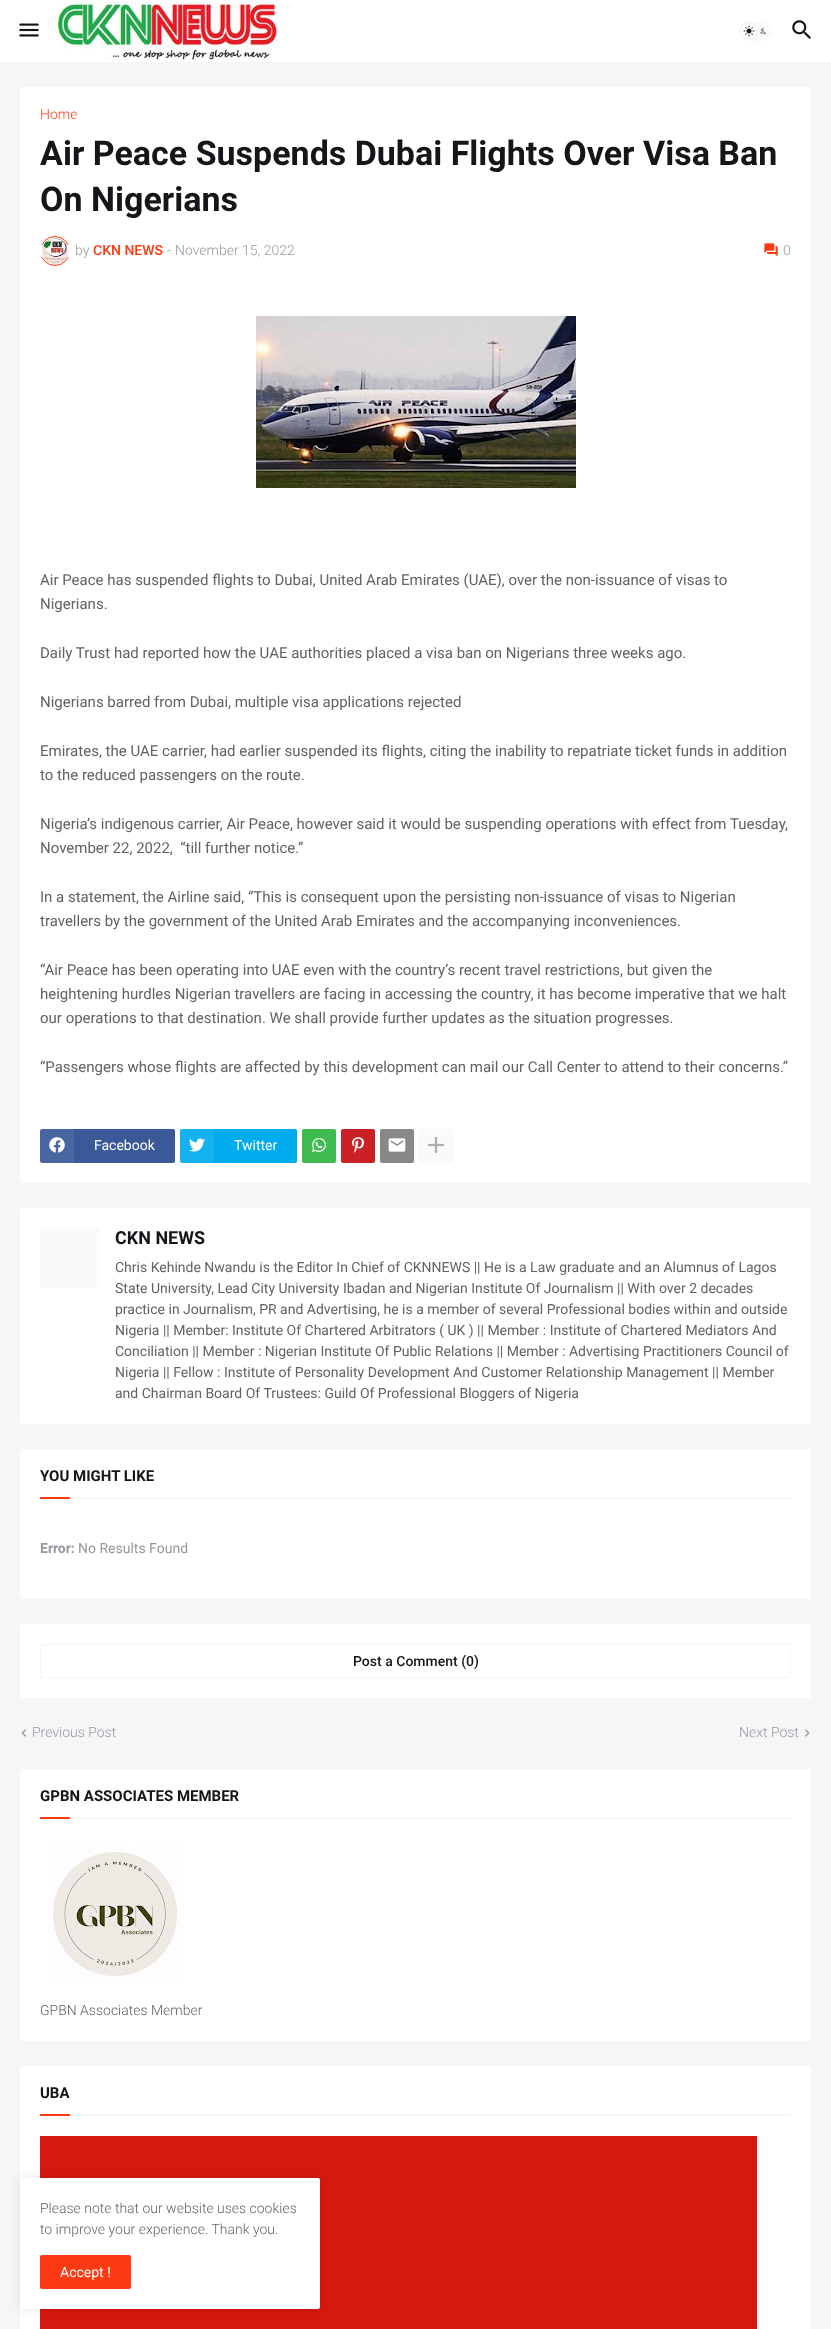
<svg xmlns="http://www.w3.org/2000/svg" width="831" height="2329">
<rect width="100%" height="100%" fill="#f5f6f7"/>
<rect width="831" height="62" fill="#fff"/>
<image x="19" y="23" width="20" height="14" href="media/1.png"/>
<image x="55" y="1" width="224" height="60" href="media/2.png"/>
<rect x="739" y="21" width="34" height="20" rx="10" fill="#fafafa"/>
<image x="760" y="27" width="7" height="8" href="media/4.png"/>
<rect x="741" y="23" width="16" height="16" rx="8" fill="#0000001a" filter="blur(1px)"/>
<circle cx="749" cy="31" r="8" fill="#fff"/>
<image x="743" y="25" width="12" height="12" href="media/3.png"/>
<image x="792" y="20" width="19" height="19" href="media/5.png"/>
<rect x="20" y="87" width="791" height="1096" rx="2" fill="#fff"/>
<text x="40" y="119" style="font-family:Roboto;font-size:14px;font-weight:300;fill:#fd3a13">Home</text>
<text x="40" y="165" style="font-family:Roboto;font-size:34px;font-weight:bold;fill:#16161a">Air Peace Suspends Dubai Flights Over Visa Ban</text>
<text x="40" y="211" style="font-family:Roboto;font-size:34px;font-weight:bold;fill:#16161a">On Nigerians</text>
<circle cx="55" cy="251" r="14.5" fill="none" stroke="#fd3a13"/>
<rect x="40" y="245" width="30" height="12" fill="#fff"/>
<image x="42" y="238" width="26" height="26" href="media/6.png"/>
<text x="75" y="255" style="font-family:Roboto;font-size:14px;font-weight:300;fill:#97979d">by</text>
<text x="93" y="255" style="font-family:Roboto;font-size:14px;font-weight:500;fill:#fd3a13">CKN NEWS</text>
<text x="167" y="255" style="font-family:Roboto;font-size:14px;font-weight:300;fill:#97979d">-</text>
<text x="175" y="255" style="font-family:Roboto;font-size:14px;font-weight:300;fill:#97979d">November 15, 2022</text>
<image x="764" y="243" width="14" height="14" href="media/7.png"/>
<text x="783" y="255" style="font-family:Roboto;font-size:14px;font-weight:300;fill:#97979d">0</text>
<image x="256" y="316" width="320" height="172" href="media/8.png"/>
<text x="40" y="585" style="font-family:Roboto;font-size:15px;fill:#626262">Air Peace has suspended flights to Dubai, United Arab Emirates (UAE), over the non-issuance of visas to</text>
<text x="40" y="609" style="font-family:Roboto;font-size:15px;fill:#626262">Nigerians.</text>
<text x="40" y="658" style="font-family:Roboto;font-size:15px;fill:#626262">Daily Trust had reported how the UAE authorities placed a visa ban on Nigerians three weeks ago.</text>
<text x="40" y="707" style="font-family:Roboto;font-size:15px;fill:#626262">Nigerians barred from Dubai, multiple visa applications rejected</text>
<text x="40" y="756" style="font-family:Roboto;font-size:15px;fill:#626262">Emirates, the UAE carrier, had earlier suspended its flights, citing the inability to repatriate ticket funds in addition</text>
<text x="40" y="780" style="font-family:Roboto;font-size:15px;fill:#626262">to the reduced passengers on the route.</text>
<text x="40" y="829" style="font-family:Roboto;font-size:15px;fill:#626262">Nigeria’s indigenous carrier, Air Peace, however said it would be suspending operations with effect from Tuesday,</text>
<text x="40" y="853" style="font-family:Roboto;font-size:15px;fill:#626262" xml:space="preserve">November 22, 2022,  “till further notice.”</text>
<text x="40" y="902" style="font-family:Roboto;font-size:15px;fill:#626262">In a statement, the Airline said, “This is consequent upon the persisting non-issuance of visas to Nigerian</text>
<text x="40" y="926" style="font-family:Roboto;font-size:15px;fill:#626262">travellers by the government of the United Arab Emirates and the accompanying inconveniences.</text>
<text x="40" y="975" style="font-family:Roboto;font-size:15px;fill:#626262">“Air Peace has been operating into UAE even with the country’s recent travel restrictions, but given the</text>
<text x="40" y="999" style="font-family:Roboto;font-size:15px;fill:#626262">heightening hurdles Nigerian travellers are facing in accessing the country, it has become imperative that we halt</text>
<text x="40" y="1023" style="font-family:Roboto;font-size:15px;fill:#626262">our operations to that destination. We shall provide further updates as the situation progresses.</text>
<text x="40" y="1072" style="font-family:Roboto;font-size:15px;fill:#626262">“Passengers whose flights are affected by this development can mail our Call Center to attend to their concerns.”</text>
<rect x="40" y="1129" width="135" height="34" rx="2" fill="#3b5999"/>
<rect x="40" y="1129" width="34" height="34" fill="#ffffff14"/>
<image x="49" y="1137" width="16" height="16" href="media/9.png"/>
<text x="94" y="1150" style="font-family:Roboto;font-size:14px;fill:#fff">Facebook</text>
<rect x="180" y="1129" width="117" height="34" rx="2" fill="#00acee"/>
<rect x="180" y="1129" width="34" height="34" fill="#ffffff14"/>
<image x="189" y="1138" width="16" height="14" href="media/10.png"/>
<text x="234" y="1150" style="font-family:Roboto;font-size:14px;fill:#fff">Twitter</text>
<rect x="302" y="1129" width="34" height="34" rx="2" fill="#3fbb50"/>
<image x="312" y="1138" width="14" height="14" href="media/11.png"/>
<rect x="341" y="1129" width="34" height="34" rx="2" fill="#ca2127"/>
<image x="352" y="1137" width="12" height="16" href="media/12.png"/>
<rect x="380" y="1129" width="34" height="34" rx="2" fill="#888"/>
<image x="388" y="1138" width="18" height="14" href="media/13.png"/>
<rect x="419" y="1129" width="34" height="34" rx="2" fill="#fafafa"/>
<image x="428" y="1137" width="16" height="16" href="media/14.png"/>
<rect x="20" y="1208" width="791" height="216" rx="2" fill="#fff"/>
<rect x="40" y="1228" width="60" height="60" fill="#9b9b9b0d"/>
<text x="115" y="1244" style="font-family:Roboto;font-size:18px;font-weight:bold;fill:#16161a">CKN NEWS</text>
<text x="115" y="1272" style="font-family:Roboto;font-size:14px;fill:#626262">Chris Kehinde Nwandu is the Editor In Chief of CKNNEWS || He is a Law graduate and an Alumnus of Lagos</text>
<text x="115" y="1293" style="font-family:Roboto;font-size:14px;fill:#626262">State University, Lead City University Ibadan and Nigerian Institute Of Journalism || With over 2 decades</text>
<text x="115" y="1314" style="font-family:Roboto;font-size:14px;fill:#626262">practice in Journalism, PR and Advertising, he is a member of several Professional bodies within and outside</text>
<text x="115" y="1335" style="font-family:Roboto;font-size:14px;fill:#626262">Nigeria || Member: Institute Of Chartered Arbitrators ( UK ) || Member : Institute of Chartered Mediators And</text>
<text x="115" y="1356" style="font-family:Roboto;font-size:14px;fill:#626262">Conciliation || Member : Nigerian Institute Of Public Relations || Member : Advertising Practitioners Council of</text>
<text x="115" y="1377" style="font-family:Roboto;font-size:14px;fill:#626262">Nigeria || Fellow : Institute of Personality Development And Customer Relationship Management || Member</text>
<text x="115" y="1398" style="font-family:Roboto;font-size:14px;fill:#626262">and Chairman Board Of Trustees: Guild Of Professional Bloggers of Nigeria</text>
<rect x="20" y="1449" width="791" height="150" rx="2" fill="#fff"/>
<rect x="70" y="1497" width="721" height="2" fill="#f5f5f5"/>
<text x="40" y="1481" style="font-family:Roboto;font-size:15px;font-weight:bold;fill:#16161a">YOU MIGHT LIKE</text>
<rect x="40" y="1497" width="30" height="2" fill="#fd3a13"/>
<text x="40" y="1553" style="font-family:Roboto;font-size:14px;font-weight:bold;fill:#97979d">Error:</text>
<text x="78" y="1553" style="font-family:Roboto;font-size:14px;fill:#97979d">No Results Found</text>
<rect x="20" y="1624" width="791" height="74" rx="2" fill="#fff"/>
<rect x="40.5" y="1644.5" width="750" height="33" rx="1.5" fill="none" stroke="#f5f5f5"/>
<text x="353" y="1666" style="font-family:Roboto;font-size:14px;font-weight:500;fill:#16161a">Post a Comment (0)</text>
<image x="21" y="1729" width="5" height="8" href="media/15.png"/>
<text x="32" y="1737" style="font-family:Roboto;font-size:14px;font-weight:300;fill:#97979d">Previous Post</text>
<text x="739" y="1737" style="font-family:Roboto;font-size:14px;font-weight:300;fill:#97979d">Next Post</text>
<image x="805" y="1729" width="5" height="8" href="media/16.png"/>
<rect x="20" y="1769" width="791" height="272" rx="2" fill="#fff"/>
<rect x="70" y="1817" width="721" height="2" fill="#f5f5f5"/>
<text x="40" y="1801" style="font-family:Roboto;font-size:15px;font-weight:bold;fill:#16161a">GPBN ASSOCIATES MEMBER</text>
<rect x="40" y="1817" width="30" height="2" fill="#fd3a13"/>
<image x="48" y="1847" width="136" height="136" href="media/17.png"/>
<text x="40" y="2015" style="font-family:Roboto;font-size:14px;font-weight:300;fill:#626262">GPBN Associates Member</text>
<rect x="20" y="2066" width="791" height="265" rx="2" fill="#fff"/>
<rect x="70" y="2114" width="721" height="2" fill="#f5f5f5"/>
<text x="40" y="2098" style="font-family:Roboto;font-size:15px;font-weight:bold;fill:#16161a">UBA</text>
<rect x="40" y="2114" width="30" height="2" fill="#fd3a13"/>
<image x="40" y="2136" width="717" height="193" href="media/18.png"/>
<rect x="20" y="2178" width="300" height="131" rx="2" fill="#0000001a" filter="blur(5px)"/>
<rect x="20" y="2178" width="300" height="131" rx="2" fill="#fff"/>
<text x="40" y="2213" style="font-family:Roboto;font-size:14px;font-weight:300;fill:#626262">Please note that our website uses cookies</text>
<text x="40" y="2234" style="font-family:Roboto;font-size:14px;font-weight:300;fill:#626262">to improve your experience. Thank you.</text>
<rect x="40" y="2255" width="91" height="34" rx="2" fill="#fd3a13"/>
<text x="60" y="2277" style="font-family:Roboto;font-size:14px;fill:#fff">Accept !</text>
</svg>
